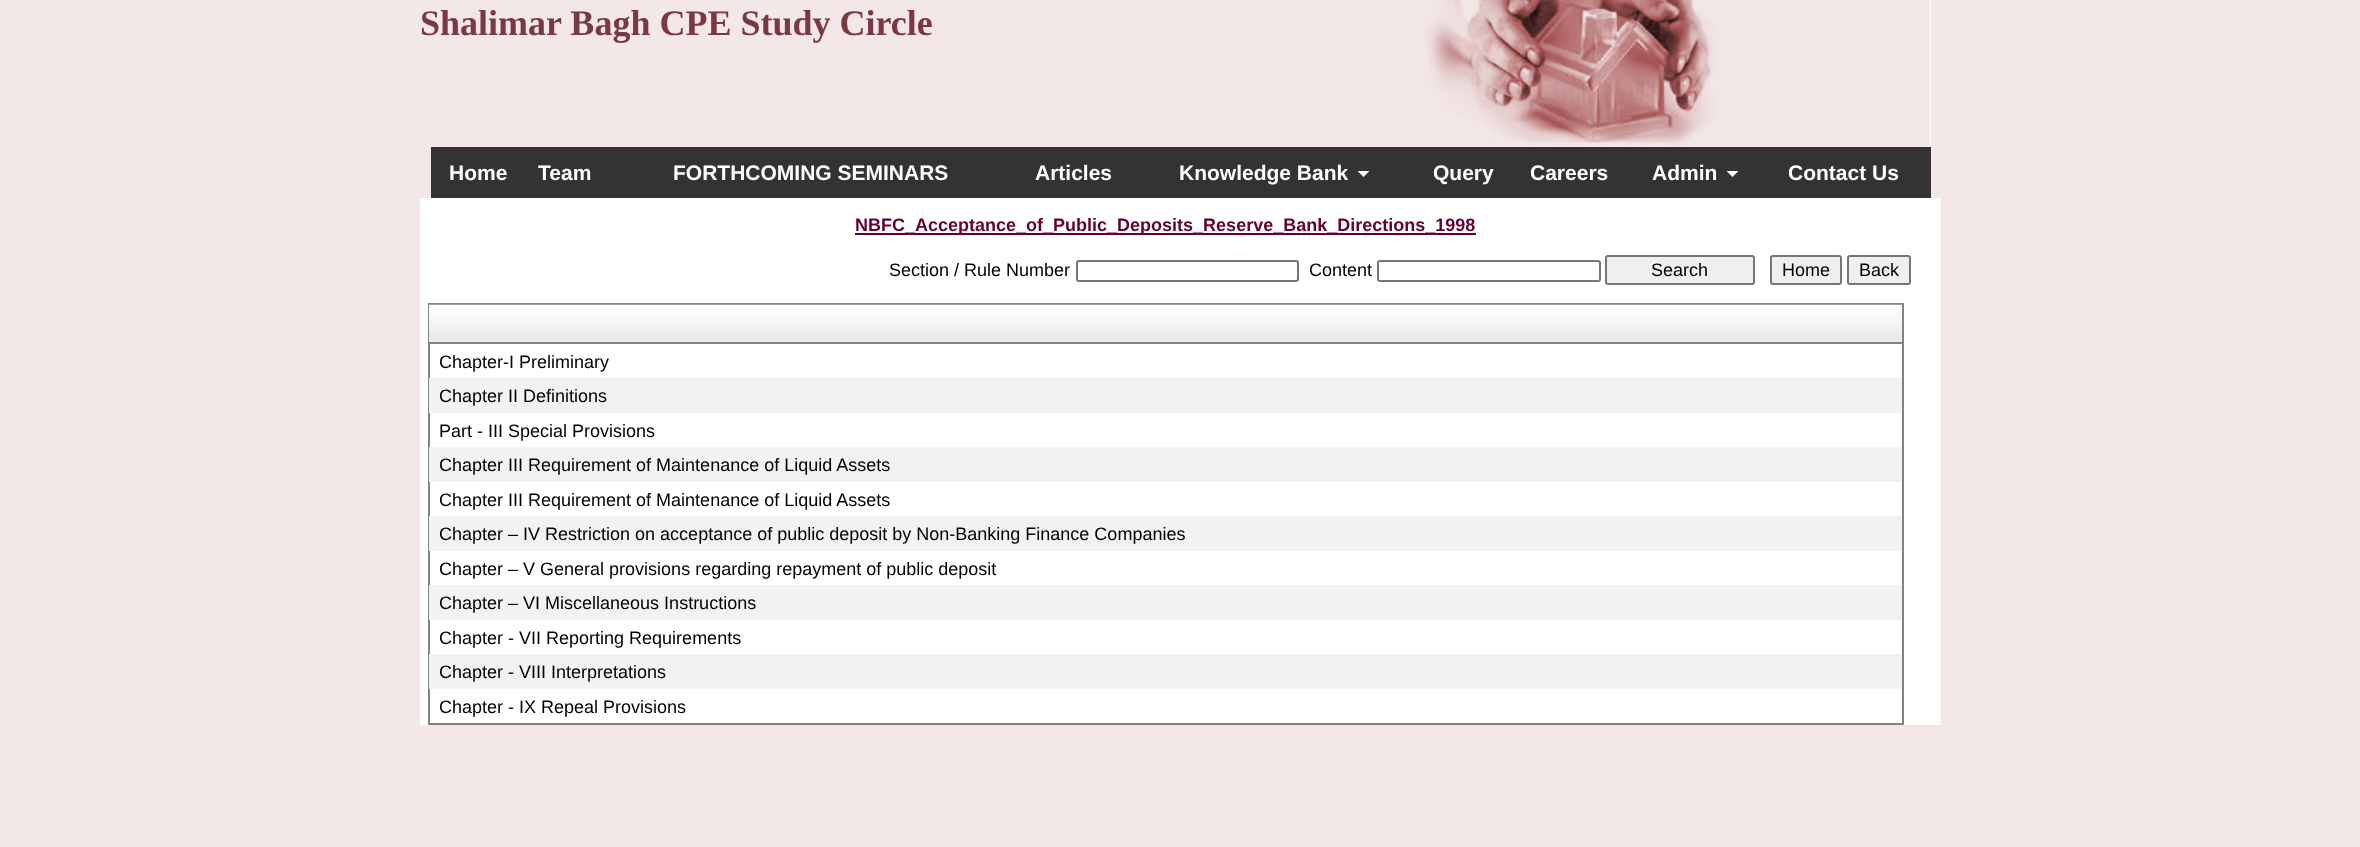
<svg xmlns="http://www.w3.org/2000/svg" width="2360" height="847">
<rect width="100%" height="100%" fill="#f3e7e7"/>
<rect x="1930" width="1" height="147" fill="#fff"/>
<image x="431" y="0" width="1500" height="147" href="media/1.png"/>
<text x="420" y="35" style="font-family:Liberation Serif;font-size:36px;font-weight:bold;fill:#7a3941">Shalimar Bagh CPE Study Circle</text>
<rect x="431" y="147" width="1500" height="51" fill="#333"/>
<text x="449" y="180" style="font-family:Liberation Sans;font-size:21px;font-weight:bold;fill:#fff">Home</text>
<text x="538" y="180" style="font-family:Liberation Sans;font-size:21px;font-weight:bold;fill:#fff">Team</text>
<text x="673" y="180" style="font-family:Liberation Sans;font-size:21px;font-weight:bold;fill:#fff">FORTHCOMING SEMINARS</text>
<text x="1035" y="180" style="font-family:Liberation Sans;font-size:21px;font-weight:bold;fill:#fff">Articles</text>
<text x="1179" y="180" style="font-family:Liberation Sans;font-size:21px;font-weight:bold;fill:#fff">Knowledge Bank</text>
<path d="M1357.5 171h12l-6 6z" fill="#fff"/>
<text x="1433" y="180" style="font-family:Liberation Sans;font-size:21px;font-weight:bold;fill:#fff">Query</text>
<text x="1530" y="180" style="font-family:Liberation Sans;font-size:21px;font-weight:bold;fill:#fff">Careers</text>
<text x="1652" y="180" style="font-family:Liberation Sans;font-size:21px;font-weight:bold;fill:#fff">Admin</text>
<path d="M1726.5 171h12l-6 6z" fill="#fff"/>
<text x="1788" y="180" style="font-family:Liberation Sans;font-size:21px;font-weight:bold;fill:#fff">Contact Us</text>
<rect x="420" y="198" width="1521" height="527" fill="#fff"/>
<rect x="855" y="233" width="621" height="2" fill="#603"/>
<text x="855" y="231" style="font-family:Liberation Sans;font-size:18px;font-weight:bold;fill:#603">NBFC_Acceptance_of_Public_Deposits_Reserve_Bank_Directions_1998</text>
<text x="889" y="276" style="font-family:Liberation Sans;font-size:18px;fill:#000">Section / Rule Number</text>
<rect x="1077" y="261" width="221" height="20" rx="2" fill="none" stroke="#767676" stroke-width="2"/>
<text x="1309" y="276" style="font-family:Liberation Sans;font-size:18px;fill:#000">Content</text>
<rect x="1378" y="261" width="222" height="20" rx="2" fill="none" stroke="#767676" stroke-width="2"/>
<rect x="1606" y="256" width="148" height="28" rx="2" fill="#efefef" stroke="#767676" stroke-width="2"/>
<text x="1651" y="276" style="font-family:Liberation Sans;font-size:18px;fill:#000">Search</text>
<rect x="1771" y="256" width="70" height="28" rx="2" fill="#efefef" stroke="#767676" stroke-width="2"/>
<text x="1782" y="276" style="font-family:Liberation Sans;font-size:18px;fill:#000">Home</text>
<rect x="1848" y="256" width="62" height="28" rx="2" fill="#efefef" stroke="#767676" stroke-width="2"/>
<text x="1859" y="276" style="font-family:Liberation Sans;font-size:18px;fill:#000">Back</text>
<rect x="429" y="304" width="1474" height="420" fill="none" stroke="#828282" stroke-width="2"/>
<rect x="429" y="333" width="1473" height="9" fill="#eaeaea"/>
<image x="429" y="304" width="1473" height="29" href="media/2.png"/>
<rect x="429" y="342" width="1473" height="2" fill="#828282"/>
<text x="439" y="368" style="font-family:Liberation Sans;font-size:18px;fill:#000">Chapter-I Preliminary</text>
<rect x="429" y="378" width="1473" height="35" fill="#f2f2f2"/>
<text x="439" y="402" style="font-family:Liberation Sans;font-size:18px;fill:#000">Chapter II Definitions</text>
<text x="439" y="437" style="font-family:Liberation Sans;font-size:18px;fill:#000">Part - III Special Provisions</text>
<rect x="429" y="447" width="1473" height="35" fill="#f2f2f2"/>
<text x="439" y="471" style="font-family:Liberation Sans;font-size:18px;fill:#000">Chapter III Requirement of Maintenance of Liquid Assets</text>
<text x="439" y="506" style="font-family:Liberation Sans;font-size:18px;fill:#000">Chapter III Requirement of Maintenance of Liquid Assets</text>
<rect x="429" y="516" width="1473" height="35" fill="#f2f2f2"/>
<text x="439" y="540" style="font-family:Liberation Sans;font-size:18px;fill:#000">Chapter – IV Restriction on acceptance of public deposit by Non-Banking Finance Companies</text>
<text x="439" y="575" style="font-family:Liberation Sans;font-size:18px;fill:#000">Chapter – V General provisions regarding repayment of public deposit</text>
<rect x="429" y="585" width="1473" height="35" fill="#f2f2f2"/>
<text x="439" y="609" style="font-family:Liberation Sans;font-size:18px;fill:#000">Chapter – VI Miscellaneous Instructions</text>
<text x="439" y="644" style="font-family:Liberation Sans;font-size:18px;fill:#000">Chapter - VII Reporting Requirements</text>
<rect x="429" y="654" width="1473" height="35" fill="#f2f2f2"/>
<text x="439" y="678" style="font-family:Liberation Sans;font-size:18px;fill:#000">Chapter - VIII Interpretations</text>
<text x="439" y="713" style="font-family:Liberation Sans;font-size:18px;fill:#000">Chapter - IX Repeal Provisions</text>
</svg>
